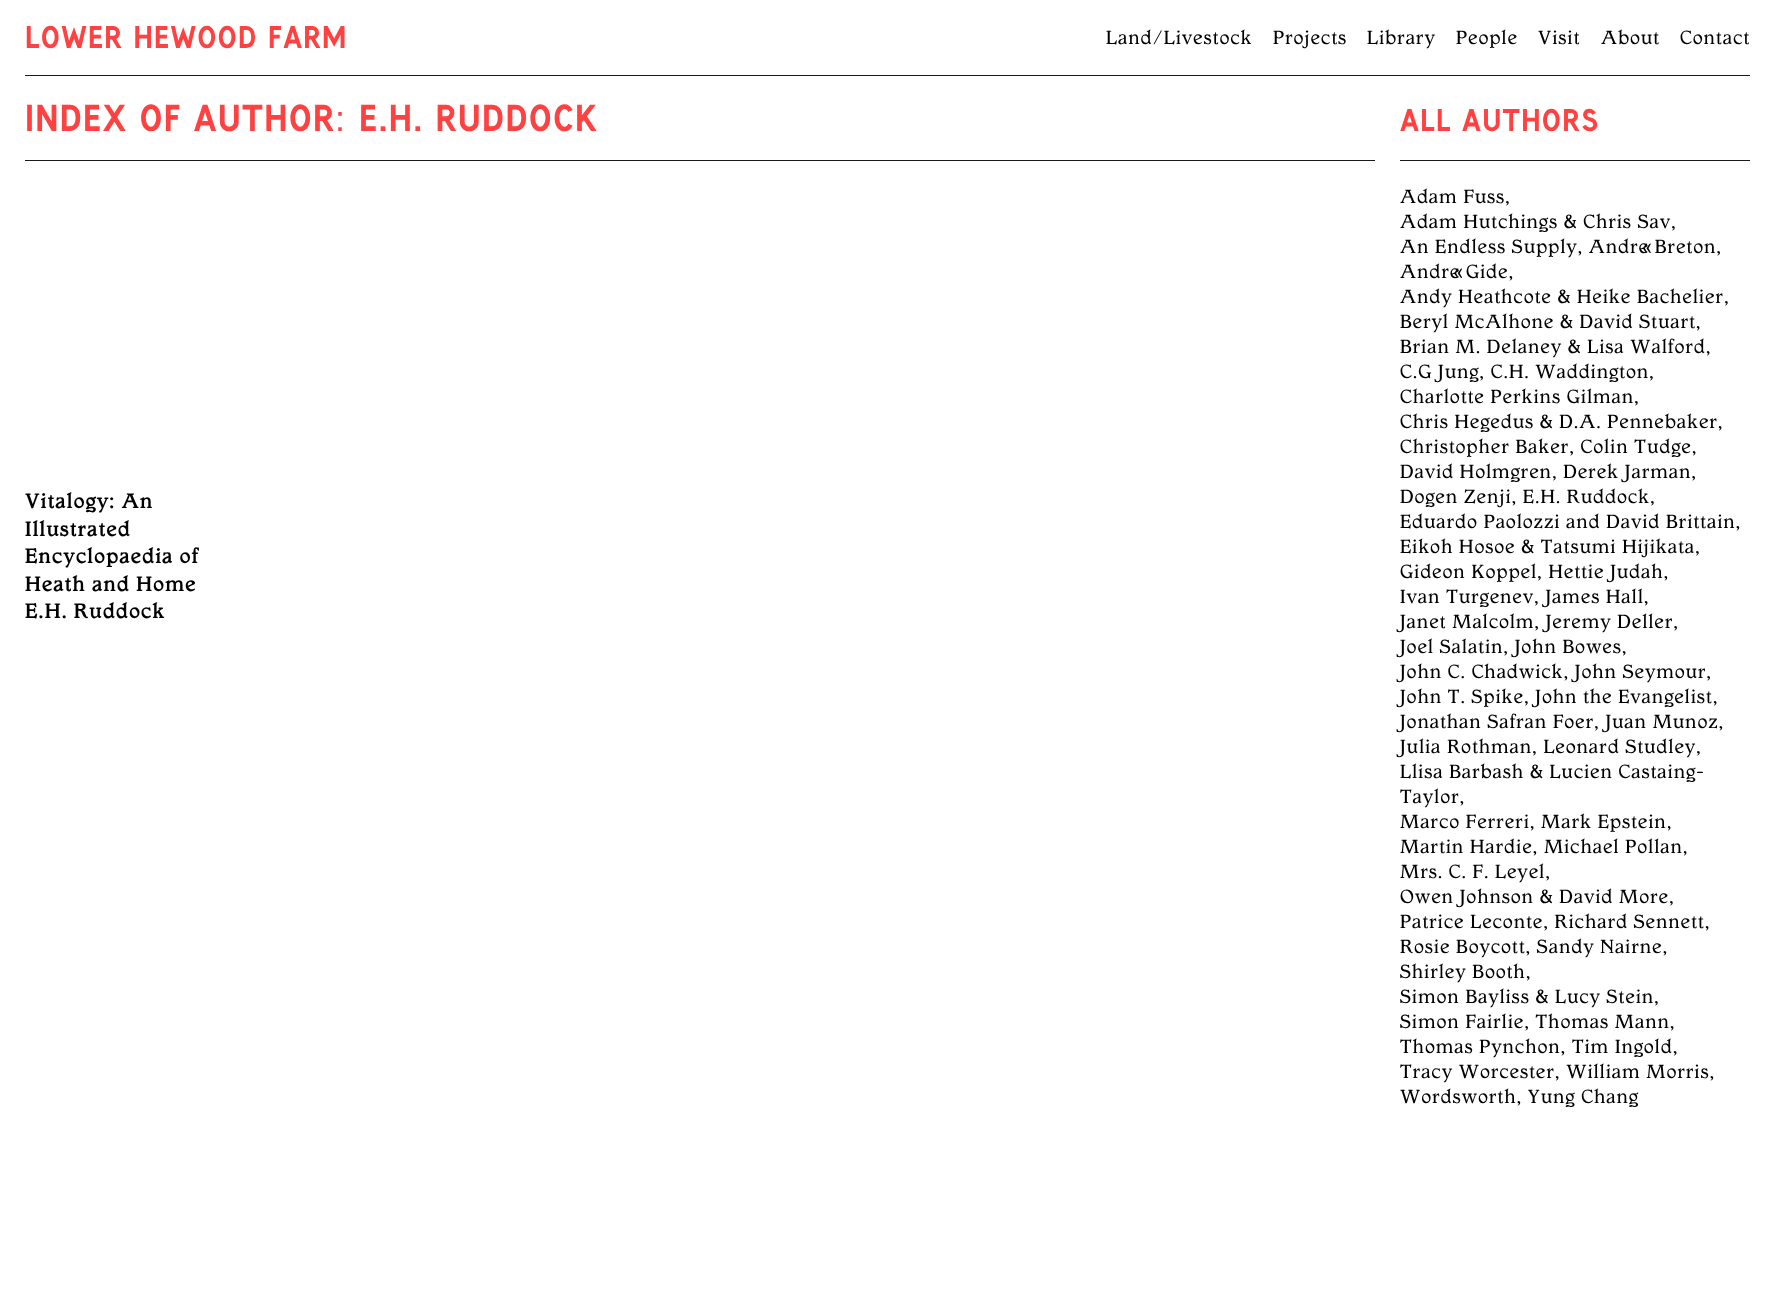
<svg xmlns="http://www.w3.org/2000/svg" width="1775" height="1302">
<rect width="100%" height="100%" fill="#fff"/>
<rect x="25" y="75" width="1725" height="1" fill="#1a1a1a"/>
<text x="25" y="48" style="font-family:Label;font-size:30px;letter-spacing:1.25px;fill:#ff4141">LOWER HEWOOD FARM</text>
<text x="1106" y="44" style="font-family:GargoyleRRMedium;font-size:20px;font-weight:500;letter-spacing:1.25px;fill:#000">Land/Livestock</text>
<text x="1273" y="44" style="font-family:GargoyleRRMedium;font-size:20px;font-weight:500;letter-spacing:1.25px;fill:#000">Projects</text>
<text x="1367" y="44" style="font-family:GargoyleRRMedium;font-size:20px;font-weight:500;letter-spacing:1.25px;fill:#000">Library</text>
<text x="1456" y="44" style="font-family:GargoyleRRMedium;font-size:20px;font-weight:500;letter-spacing:1.25px;fill:#000">People</text>
<text x="1538" y="44" style="font-family:GargoyleRRMedium;font-size:20px;font-weight:500;letter-spacing:1.25px;fill:#000">Visit</text>
<text x="1601" y="44" style="font-family:GargoyleRRMedium;font-size:20px;font-weight:500;letter-spacing:1.25px;fill:#000">About</text>
<text x="1680" y="44" style="font-family:GargoyleRRMedium;font-size:20px;font-weight:500;letter-spacing:1.25px;fill:#000">Contact</text>
<rect x="25" y="160" width="1350" height="1" fill="#1a1a1a"/>
<text x="25" y="131" style="font-family:Label;font-size:36px;letter-spacing:1.25px;fill:#ff4141">INDEX OF AUTHOR</text>
<text x="335" y="131" style="font-family:Liberation Sans;font-size:36px;letter-spacing:1.25px;fill:#ff4141">:</text>
<text x="359" y="131" style="font-family:Label;font-size:36px;letter-spacing:1.25px;fill:#ff4141">E.H. RUDDOCK</text>
<text x="25" y="508" style="font-family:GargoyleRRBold;font-size:22px;font-weight:bold;letter-spacing:1.25px;fill:#000">Vitalogy: An</text>
<text x="25" y="536" style="font-family:GargoyleRRBold;font-size:22px;font-weight:bold;letter-spacing:1.25px;fill:#000">Illustrated</text>
<text x="25" y="563" style="font-family:GargoyleRRBold;font-size:22px;font-weight:bold;letter-spacing:1.25px;fill:#000">Encyclopaedia of</text>
<text x="25" y="591" style="font-family:GargoyleRRBold;font-size:22px;font-weight:bold;letter-spacing:1.25px;fill:#000">Heath and Home</text>
<text x="25" y="618" style="font-family:GargoyleRRBold;font-size:22px;font-weight:bold;letter-spacing:1.25px;fill:#000">E.H. Ruddock</text>
<rect x="1400" y="160" width="350" height="1" fill="#1a1a1a"/>
<text x="1400" y="131" style="font-family:Label;font-size:30px;letter-spacing:1.25px;fill:#ff4141">ALL AUTHORS</text>
<text x="1400" y="203" style="font-family:GargoyleRRMedium;font-size:20px;font-weight:500;letter-spacing:1.25px;fill:#000">Adam Fuss,</text>
<text x="1400" y="228" style="font-family:GargoyleRRMedium;font-size:20px;font-weight:500;letter-spacing:1.25px;fill:#000">Adam Hutchings &amp; Chris Sav,</text>
<text x="1400" y="253" style="font-family:GargoyleRRMedium;font-size:20px;font-weight:500;letter-spacing:1.25px;fill:#000">An Endless Supply, André Breton,</text>
<text x="1400" y="278" style="font-family:GargoyleRRMedium;font-size:20px;font-weight:500;letter-spacing:1.25px;fill:#000">André Gide,</text>
<text x="1400" y="303" style="font-family:GargoyleRRMedium;font-size:20px;font-weight:500;letter-spacing:1.25px;fill:#000">Andy Heathcote &amp; Heike Bachelier,</text>
<text x="1400" y="328" style="font-family:GargoyleRRMedium;font-size:20px;font-weight:500;letter-spacing:1.25px;fill:#000">Beryl McAlhone &amp; David Stuart,</text>
<text x="1400" y="353" style="font-family:GargoyleRRMedium;font-size:20px;font-weight:500;letter-spacing:1.25px;fill:#000">Brian M. Delaney &amp; Lisa Walford,</text>
<text x="1400" y="378" style="font-family:GargoyleRRMedium;font-size:20px;font-weight:500;letter-spacing:1.25px;fill:#000">C.G Jung, C.H. Waddington,</text>
<text x="1400" y="403" style="font-family:GargoyleRRMedium;font-size:20px;font-weight:500;letter-spacing:1.25px;fill:#000">Charlotte Perkins Gilman,</text>
<text x="1400" y="428" style="font-family:GargoyleRRMedium;font-size:20px;font-weight:500;letter-spacing:1.25px;fill:#000">Chris Hegedus &amp; D.A. Pennebaker,</text>
<text x="1400" y="453" style="font-family:GargoyleRRMedium;font-size:20px;font-weight:500;letter-spacing:1.25px;fill:#000">Christopher Baker, Colin Tudge,</text>
<text x="1400" y="478" style="font-family:GargoyleRRMedium;font-size:20px;font-weight:500;letter-spacing:1.25px;fill:#000">David Holmgren, Derek Jarman,</text>
<text x="1400" y="503" style="font-family:GargoyleRRMedium;font-size:20px;font-weight:500;letter-spacing:1.25px;fill:#000">Dogen Zenji, E.H. Ruddock,</text>
<text x="1400" y="528" style="font-family:GargoyleRRMedium;font-size:20px;font-weight:500;letter-spacing:1.25px;fill:#000">Eduardo Paolozzi and David Brittain,</text>
<text x="1400" y="553" style="font-family:GargoyleRRMedium;font-size:20px;font-weight:500;letter-spacing:1.25px;fill:#000">Eikoh Hosoe &amp; Tatsumi Hijikata,</text>
<text x="1400" y="578" style="font-family:GargoyleRRMedium;font-size:20px;font-weight:500;letter-spacing:1.25px;fill:#000">Gideon Koppel, Hettie Judah,</text>
<text x="1400" y="603" style="font-family:GargoyleRRMedium;font-size:20px;font-weight:500;letter-spacing:1.25px;fill:#000">Ivan Turgenev, James Hall,</text>
<text x="1400" y="628" style="font-family:GargoyleRRMedium;font-size:20px;font-weight:500;letter-spacing:1.25px;fill:#000">Janet Malcolm, Jeremy Deller,</text>
<text x="1400" y="653" style="font-family:GargoyleRRMedium;font-size:20px;font-weight:500;letter-spacing:1.25px;fill:#000">Joel Salatin, John Bowes,</text>
<text x="1400" y="678" style="font-family:GargoyleRRMedium;font-size:20px;font-weight:500;letter-spacing:1.25px;fill:#000">John C. Chadwick, John Seymour,</text>
<text x="1400" y="703" style="font-family:GargoyleRRMedium;font-size:20px;font-weight:500;letter-spacing:1.25px;fill:#000">John T. Spike, John the Evangelist,</text>
<text x="1400" y="728" style="font-family:GargoyleRRMedium;font-size:20px;font-weight:500;letter-spacing:1.25px;fill:#000">Jonathan Safran Foer, Juan Munoz,</text>
<text x="1400" y="753" style="font-family:GargoyleRRMedium;font-size:20px;font-weight:500;letter-spacing:1.25px;fill:#000">Julia Rothman, Leonard Studley,</text>
<text x="1400" y="778" style="font-family:GargoyleRRMedium;font-size:20px;font-weight:500;letter-spacing:1.25px;fill:#000">Llisa Barbash &amp; Lucien Castaing-</text>
<text x="1400" y="803" style="font-family:GargoyleRRMedium;font-size:20px;font-weight:500;letter-spacing:1.25px;fill:#000">Taylor,</text>
<text x="1400" y="828" style="font-family:GargoyleRRMedium;font-size:20px;font-weight:500;letter-spacing:1.25px;fill:#000">Marco Ferreri, Mark Epstein,</text>
<text x="1400" y="853" style="font-family:GargoyleRRMedium;font-size:20px;font-weight:500;letter-spacing:1.25px;fill:#000">Martin Hardie, Michael Pollan,</text>
<text x="1400" y="878" style="font-family:GargoyleRRMedium;font-size:20px;font-weight:500;letter-spacing:1.25px;fill:#000">Mrs. C. F. Leyel,</text>
<text x="1400" y="903" style="font-family:GargoyleRRMedium;font-size:20px;font-weight:500;letter-spacing:1.25px;fill:#000">Owen Johnson &amp; David More,</text>
<text x="1400" y="928" style="font-family:GargoyleRRMedium;font-size:20px;font-weight:500;letter-spacing:1.25px;fill:#000">Patrice Leconte, Richard Sennett,</text>
<text x="1400" y="953" style="font-family:GargoyleRRMedium;font-size:20px;font-weight:500;letter-spacing:1.25px;fill:#000">Rosie Boycott, Sandy Nairne,</text>
<text x="1400" y="978" style="font-family:GargoyleRRMedium;font-size:20px;font-weight:500;letter-spacing:1.25px;fill:#000">Shirley Booth,</text>
<text x="1400" y="1003" style="font-family:GargoyleRRMedium;font-size:20px;font-weight:500;letter-spacing:1.25px;fill:#000">Simon Bayliss &amp; Lucy Stein,</text>
<text x="1400" y="1028" style="font-family:GargoyleRRMedium;font-size:20px;font-weight:500;letter-spacing:1.25px;fill:#000">Simon Fairlie, Thomas Mann,</text>
<text x="1400" y="1053" style="font-family:GargoyleRRMedium;font-size:20px;font-weight:500;letter-spacing:1.25px;fill:#000">Thomas Pynchon, Tim Ingold,</text>
<text x="1400" y="1078" style="font-family:GargoyleRRMedium;font-size:20px;font-weight:500;letter-spacing:1.25px;fill:#000">Tracy Worcester, William Morris,</text>
<text x="1400" y="1103" style="font-family:GargoyleRRMedium;font-size:20px;font-weight:500;letter-spacing:1.25px;fill:#000">Wordsworth, Yung Chang</text>
</svg>
